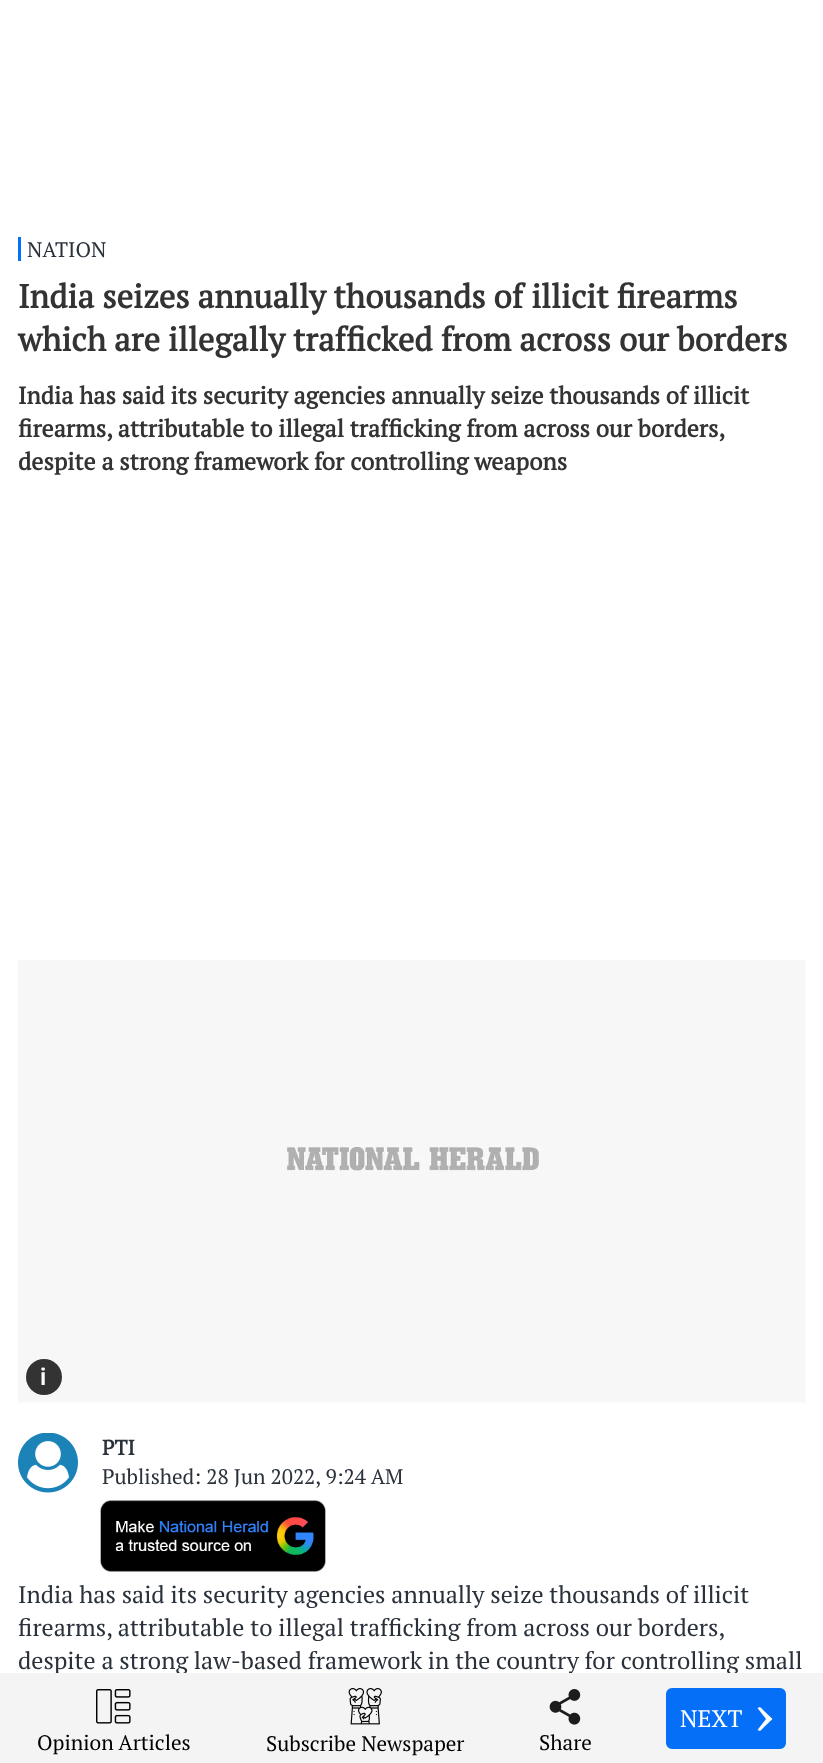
<svg xmlns="http://www.w3.org/2000/svg" width="823" height="1763">
<rect width="100%" height="100%" fill="#fff"/>
<rect x="18" y="237" width="3" height="24" fill="#056ff7"/>
<text x="27" y="257" style="font-family:PT Serif;font-size:21px;fill:#2a313b">NATION</text>
<text x="18" y="308" style="font-family:PT Serif;font-size:33px;font-weight:bold;fill:#333">India seizes annually thousands of illicit firearms</text>
<text x="18" y="351" style="font-family:PT Serif;font-size:33px;font-weight:bold;fill:#333">which are illegally trafficked from across our borders</text>
<text x="18" y="404" style="font-family:PT Serif;font-size:24px;font-weight:bold;fill:#333">India has said its security agencies annually seize thousands of illicit</text>
<text x="18" y="437" style="font-family:PT Serif;font-size:24px;font-weight:bold;fill:#333">firearms, attributable to illegal trafficking from across our borders,</text>
<text x="18" y="470" style="font-family:PT Serif;font-size:24px;font-weight:bold;fill:#333">despite a strong framework for controlling weapons</text>
<image x="18" y="960" width="788" height="443" href="media/1.png"/>
<circle cx="44" cy="1377" r="18" fill="#333"/>
<text x="40" y="1385" style="font-family:Roboto;font-size:24px;font-weight:600;fill:#fff">i</text>
<image x="18" y="1433" width="60" height="60" href="media/2.png"/>
<text x="102" y="1455" style="font-family:PT Serif;font-size:21px;font-weight:bold;fill:#2a313b">PTI</text>
<text x="102" y="1484" style="font-family:PT Serif;font-size:21px;fill:#2a313b">Published: 28 Jun 2022, 9:24 AM</text>
<image x="100" y="1500" width="226" height="72" href="media/3.png"/>
<text x="18" y="1603" style="font-family:PT Serif;font-size:24px;fill:#2a313b">India has said its security agencies annually seize thousands of illicit</text>
<text x="18" y="1636" style="font-family:PT Serif;font-size:24px;fill:#2a313b">firearms, attributable to illegal trafficking from across our borders,</text>
<text x="18" y="1669" style="font-family:PT Serif;font-size:24px;fill:#2a313b">despite a strong law-based framework in the country for controlling small</text>
<rect y="1673" width="823" height="90" fill="#f4f4f4"/>
<rect x="667" y="1689" width="118" height="59" rx="5" fill="#056ff7" stroke="#056ff7" stroke-width="2"/>
<text x="680" y="1727" style="font-family:PT Serif;font-size:24px;fill:#fff">NEXT</text>
<path d="M757.5 1730l8.5-11l-8.5-11l2.5-1l12.5 12l-12.5 12z" fill="#fff"/>
<image x="96" y="1689" width="35" height="35" href="media/4.png"/>
<text x="37" y="1750" style="font-family:PT Serif;font-size:21px;fill:#000">Opinion Articles</text>
<image x="348" y="1688" width="34" height="37" href="media/5.png"/>
<text x="266" y="1751" style="font-family:PT Serif;font-size:21px;fill:#000">Subscribe Newspaper</text>
<image x="549" y="1689" width="32" height="36" href="media/6.png"/>
<text x="539" y="1750" style="font-family:PT Serif;font-size:21px;fill:#000">Share</text>
</svg>
